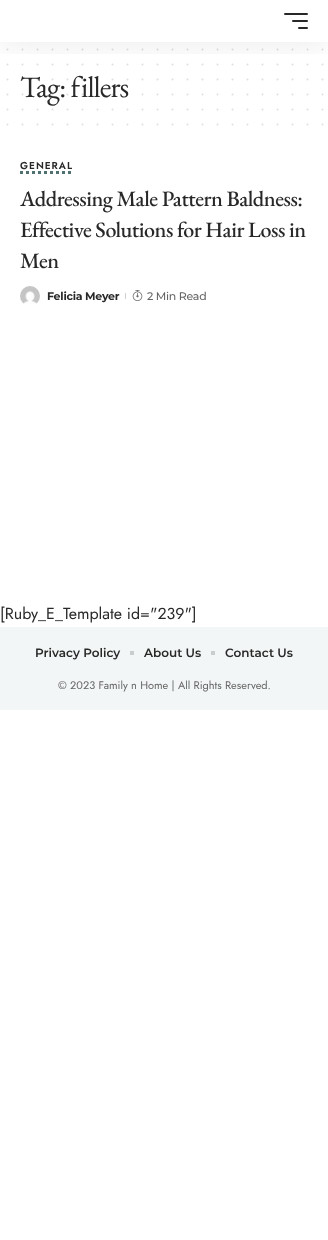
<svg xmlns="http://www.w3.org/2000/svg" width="328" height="1240">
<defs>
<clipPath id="clip1"><rect x="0" y="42" width="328" height="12"/></clipPath>
</defs>
<rect width="100%" height="100%" fill="#fff"/>
<path d="M7.5 49.5h315.2" fill="none" stroke="#dfdfdf" stroke-width="2" stroke-linecap="round" stroke-dasharray="0 15"/>
<path d="M7.5 64.5h315.2" fill="none" stroke="#dfdfdf" stroke-width="2" stroke-linecap="round" stroke-dasharray="0 15"/>
<text x="20" y="97" style="font-family:EB Garamond;font-size:30px;letter-spacing:-1px;fill:#282828">Tag: fillers</text>
<path d="M7.5 79.5h315.2" fill="none" stroke="#28282826" stroke-width="2" stroke-linecap="round" stroke-dasharray="0 15"/>
<g clip-path="url(#clip1)">
<rect y="4" width="328" height="42" fill="#00000012" filter="blur(15px)"/>
</g>
<rect x="284" y="13" width="24" height="2" rx="1" fill="#282828"/>
<rect x="292" y="20" width="16" height="2" rx="1" fill="#282828"/>
<rect x="298" y="27" width="10" height="2" rx="1" fill="#282828"/>
<path d="M7.5 94.5h315.2" fill="none" stroke="#28282826" stroke-width="2" stroke-linecap="round" stroke-dasharray="0 15"/>
<path d="M7.5 109.5h315.2" fill="none" stroke="#dfdfdf" stroke-width="2" stroke-linecap="round" stroke-dasharray="0 15"/>
<path d="M7.5 124.5h315.2" fill="none" stroke="#dfdfdf" stroke-width="2" stroke-linecap="round" stroke-dasharray="0 15"/>
<path d="M20 172.5h53" fill="none" stroke="#507172" stroke-width="3" stroke-dasharray="3 3"/>
<text x="20" y="169" style="font-family:Jost;font-size:10px;font-weight:600;letter-spacing:1px;fill:#282828">GENERAL</text>
<text x="20" y="206" style="font-family:EB Garamond;font-size:22px;font-weight:500;letter-spacing:-0.5px;fill:#282828">Addressing Male Pattern Baldness:</text>
<text x="20" y="237" style="font-family:EB Garamond;font-size:22px;font-weight:500;letter-spacing:-0.5px;fill:#282828">Effective Solutions for Hair Loss in</text>
<text x="20" y="268" style="font-family:EB Garamond;font-size:22px;font-weight:500;letter-spacing:-0.5px;fill:#282828">Men</text>
<image x="20" y="286" width="20" height="18" href="media/1.png"/>
<text x="47" y="300" style="font-family:Montserrat;font-size:11px;font-weight:bold;letter-spacing:-0.25px;fill:#282828">Felicia Meyer</text>
<rect x="125" y="293" width="1" height="6" fill="#d1d1d1"/>
<image x="132" y="290" width="11" height="11" href="media/2.png"/>
<text x="147" y="300" style="font-family:Montserrat;font-size:11px;font-weight:500;letter-spacing:-0.25px;fill:#656666">2 Min Read</text>
<text x="0" y="619" style="font-family:Jost;font-size:16px;fill:#282828">[Ruby_E_Template id="239"]</text>
<rect y="627" width="328" height="83" fill="#f3f6f6"/>
<text x="35" y="657" style="font-family:Montserrat;font-size:12px;font-weight:600;fill:#282828">Privacy Policy</text>
<rect x="130" y="651" width="4" height="4" fill="#cacdcd"/>
<text x="144" y="657" style="font-family:Montserrat;font-size:12px;font-weight:600;fill:#282828">About Us</text>
<rect x="211" y="651" width="4" height="4" fill="#cacdcd"/>
<text x="225" y="657" style="font-family:Montserrat;font-size:12px;font-weight:600;fill:#282828">Contact Us</text>
<text x="58" y="689" style="font-family:Jost;font-size:11px;fill:#656666">© 2023 Family n Home | All Rights Reserved.</text>
</svg>
